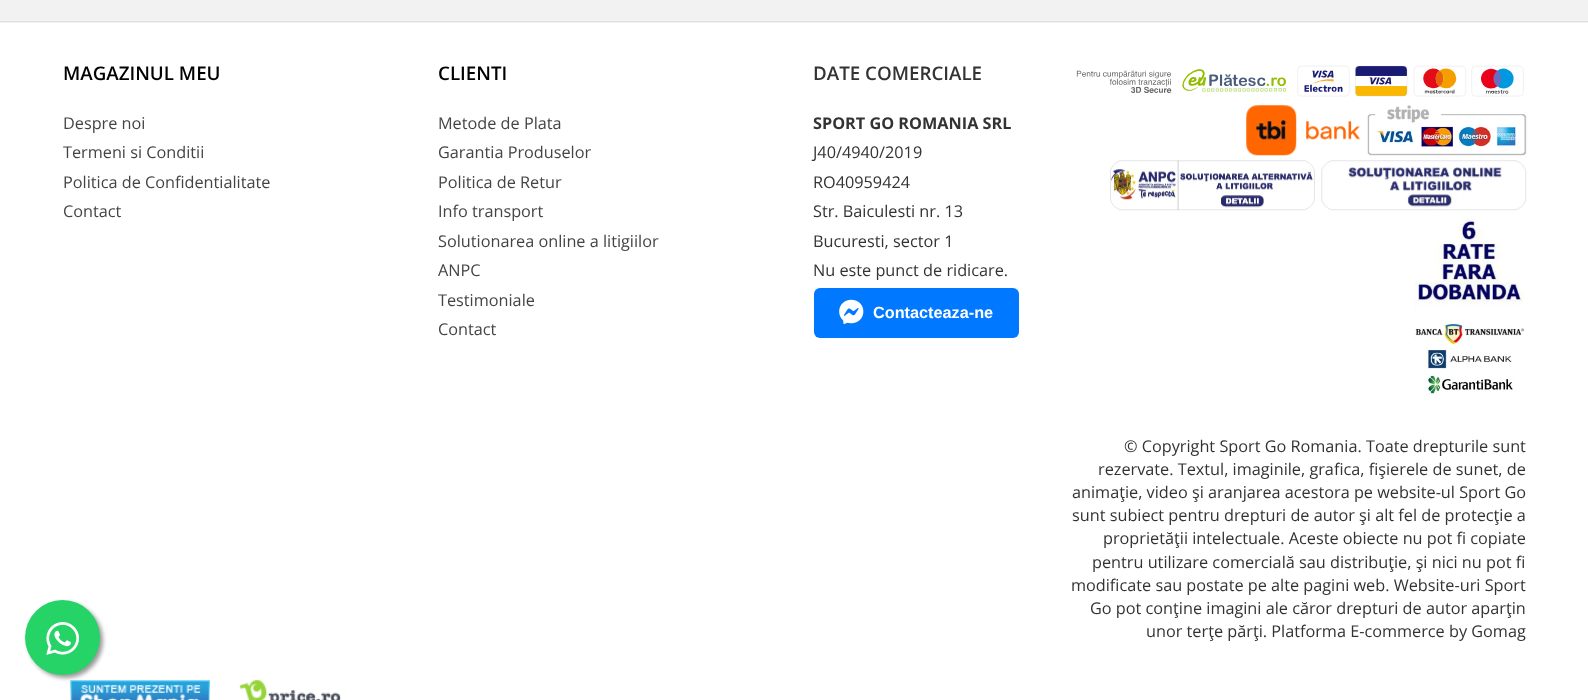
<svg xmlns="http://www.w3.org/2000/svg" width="1588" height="700">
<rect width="100%" height="100%" fill="#fff"/>
<rect width="1588" height="23" fill="#f2f2f2"/>
<rect y="21" width="1588" height="1" fill="#dfdfdf"/>
<text x="63" y="80" style="font-family:Open Sans;font-size:18.75px;font-weight:600;fill:#000">MAGAZINUL MEU</text>
<text x="63" y="129" style="font-family:Open Sans;font-size:16.25px;fill:#444">Despre noi</text>
<text x="63" y="158" style="font-family:Open Sans;font-size:16.25px;fill:#444">Termeni si Conditii</text>
<text x="63" y="188" style="font-family:Open Sans;font-size:16.25px;fill:#444">Politica de Confidentialitate</text>
<text x="63" y="217" style="font-family:Open Sans;font-size:16.25px;fill:#444">Contact</text>
<text x="438" y="80" style="font-family:Open Sans;font-size:18.75px;font-weight:600;fill:#000">CLIENTI</text>
<text x="438" y="129" style="font-family:Open Sans;font-size:16.25px;fill:#444">Metode de Plata</text>
<text x="438" y="158" style="font-family:Open Sans;font-size:16.25px;fill:#444">Garantia Produselor</text>
<text x="438" y="188" style="font-family:Open Sans;font-size:16.25px;fill:#444">Politica de Retur</text>
<text x="438" y="217" style="font-family:Open Sans;font-size:16.25px;fill:#444">Info transport</text>
<text x="438" y="247" style="font-family:Open Sans;font-size:16.25px;fill:#444">Solutionarea online a litigiilor</text>
<text x="438" y="276" style="font-family:Open Sans;font-size:16.25px;fill:#444">ANPC</text>
<text x="438" y="306" style="font-family:Open Sans;font-size:16.25px;fill:#444">Testimoniale</text>
<text x="438" y="335" style="font-family:Open Sans;font-size:16.25px;fill:#444">Contact</text>
<text x="813" y="80" style="font-family:Open Sans;font-size:18.75px;font-weight:600;fill:#333">DATE COMERCIALE</text>
<text x="813" y="129" style="font-family:Open Sans;font-size:16.25px;font-weight:bold;fill:#333">SPORT GO ROMANIA SRL</text>
<text x="813" y="158" style="font-family:Open Sans;font-size:16.25px;fill:#333">J40/4940/2019</text>
<text x="813" y="188" style="font-family:Open Sans;font-size:16.25px;fill:#333">RO40959424</text>
<text x="813" y="217" style="font-family:Open Sans;font-size:16.25px;fill:#333">Str. Baiculesti nr. 13</text>
<text x="813" y="247" style="font-family:Open Sans;font-size:16.25px;fill:#333">Bucuresti, sector 1</text>
<text x="813" y="276" style="font-family:Open Sans;font-size:16.25px;fill:#333">Nu este punct de ridicare.</text>
<rect x="814" y="288" width="205" height="50" rx="6" fill="#0078ff"/>
<image x="839" y="299" width="25" height="25" href="media/1.png"/>
<text x="873" y="318" style="font-family:Liberation Sans;font-size:16.25px;font-weight:bold;fill:#fff">Contacteaza-ne</text>
<image x="1076" y="65" width="448" height="32" href="media/2.png"/>
<image x="1246" y="105" width="114" height="51" href="media/3.png"/>
<image x="1367" y="105" width="160" height="51" href="media/4.png"/>
<image x="1110" y="160" width="205" height="51" href="media/5.png"/>
<image x="1321" y="160" width="206" height="51" href="media/6.png"/>
<image x="1414" y="219" width="111" height="175" href="media/7.png"/>
<text x="1124" y="452" style="font-family:Open Sans;font-size:16.25px;fill:#333">© Copyright Sport Go Romania. Toate drepturile sunt</text>
<text x="1098" y="475" style="font-family:Open Sans;font-size:16.25px;fill:#333">rezervate. Textul, imaginile, grafica, fişierele de sunet, de</text>
<text x="1072" y="498" style="font-family:Open Sans;font-size:16.25px;fill:#333">animaţie, video şi aranjarea acestora pe website-ul Sport Go</text>
<text x="1072" y="521" style="font-family:Open Sans;font-size:16.25px;fill:#333">sunt subiect pentru drepturi de autor şi alt fel de protecţie a</text>
<text x="1103" y="544" style="font-family:Open Sans;font-size:16.25px;fill:#333">proprietăţii intelectuale. Aceste obiecte nu pot fi copiate</text>
<text x="1092" y="568" style="font-family:Open Sans;font-size:16.25px;fill:#333">pentru utilizare comercială sau distribuţie, şi nici nu pot fi</text>
<text x="1071" y="591" style="font-family:Open Sans;font-size:16.25px;fill:#333">modificate sau postate pe alte pagini web. Website-uri Sport</text>
<text x="1090" y="614" style="font-family:Open Sans;font-size:16.25px;fill:#333">Go pot conţine imagini ale căror drepturi de autor aparţin</text>
<text x="1146" y="637" style="font-family:Open Sans;font-size:16.25px;fill:#333">unor terţe părţi. Platforma E-commerce by Gomag</text>
<image x="70" y="680" width="140" height="20" href="media/8.png"/>
<image x="239" y="680" width="102" height="20" href="media/9.png"/>
<rect x="28" y="603" width="75" height="75" rx="37.5" fill="#999" filter="blur(2px)"/>
<circle cx="62.5" cy="637.5" r="37.5" fill="#25d366"/>
<image x="46" y="622" width="34" height="33" href="media/10.png"/>
</svg>
